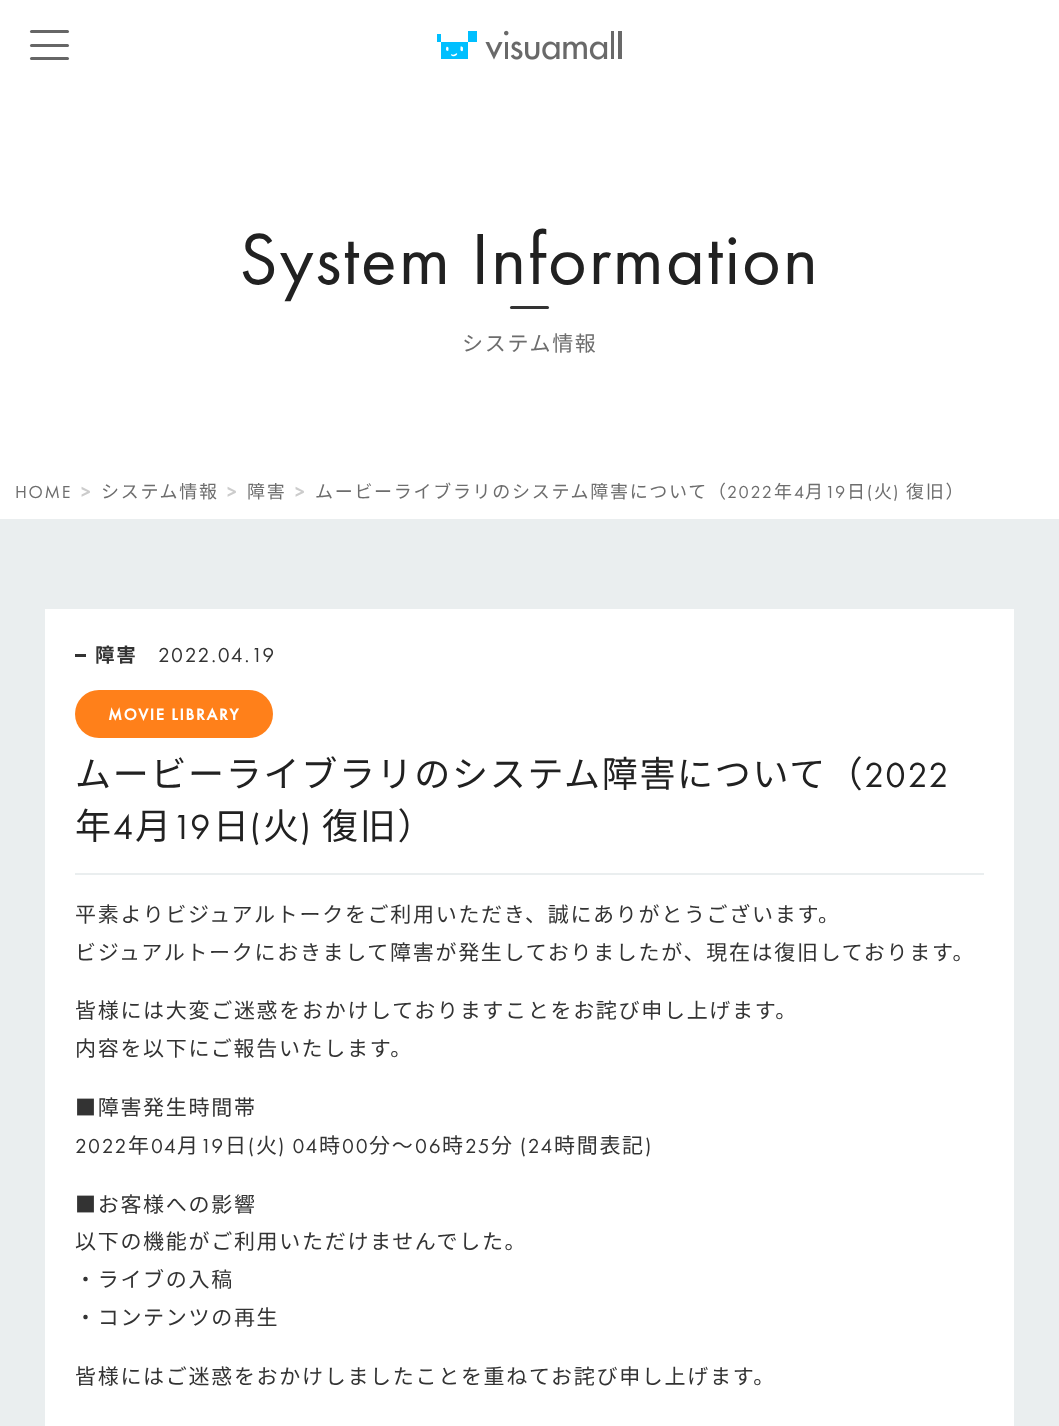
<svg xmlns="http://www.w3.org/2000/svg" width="1059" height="1426">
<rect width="100%" height="100%" fill="#eaeeef"/>
<rect width="1059" height="519" fill="#fff"/>
<rect x="30" y="30" width="39" height="3" rx="1.5" fill="#666"/>
<rect x="30" y="44" width="39" height="3" rx="1.5" fill="#666"/>
<rect x="30" y="57" width="39" height="3" rx="1.5" fill="#666"/>
<image x="437" y="30" width="185" height="30" href="media/1.png"/>
<text x="239" y="284" style="font-family:Futura PT;font-size:75px;letter-spacing:1.7px;fill:#212121">System Information</text>
<rect x="510" y="306" width="39" height="3" rx="1.5" fill="#333"/>
<text x="462" y="351" style="font-family:Noto Sans JP;font-size:21px;letter-spacing:1.7px;fill:#6d6d6d">システム情報</text>
<text x="15" y="498" style="font-family:Futura PT;font-size:18px;letter-spacing:1.7px;fill:#6d6d6d">HOME</text>
<text x="81" y="498" style="font-family:Futura PT;font-size:18px;font-weight:bold;letter-spacing:1.7px;fill:#ccc">&gt;</text>
<text x="101" y="498" style="font-family:Noto Sans JP;font-size:18px;letter-spacing:1.7px;fill:#6d6d6d">システム情報</text>
<text x="227" y="498" style="font-family:Futura PT;font-size:18px;font-weight:bold;letter-spacing:1.7px;fill:#ccc">&gt;</text>
<text x="247" y="498" style="font-family:Noto Sans JP;font-size:18px;letter-spacing:1.7px;fill:#6d6d6d">障害</text>
<text x="295" y="498" style="font-family:Futura PT;font-size:18px;font-weight:bold;letter-spacing:1.7px;fill:#ccc">&gt;</text>
<text x="315" y="498" style="font-family:Noto Sans JP;font-size:18px;letter-spacing:1.7px;fill:#6d6d6d">ムービーライブラリのシステム障害について（</text>
<text x="727" y="498" style="font-family:Futura PT;font-size:18px;letter-spacing:1.7px;fill:#6d6d6d">2022</text>
<text x="774" y="498" style="font-family:Noto Sans JP;font-size:18px;letter-spacing:1.7px;fill:#6d6d6d">年</text>
<text x="794" y="498" style="font-family:Futura PT;font-size:18px;letter-spacing:1.7px;fill:#6d6d6d">4</text>
<text x="805" y="498" style="font-family:Noto Sans JP;font-size:18px;letter-spacing:1.7px;fill:#6d6d6d">月</text>
<text x="825" y="498" style="font-family:Futura PT;font-size:18px;letter-spacing:1.7px;fill:#6d6d6d">19</text>
<text x="847" y="498" style="font-family:Noto Sans JP;font-size:18px;letter-spacing:1.7px;fill:#6d6d6d">日</text>
<text x="867" y="498" style="font-family:Futura PT;font-size:18px;letter-spacing:1.7px;fill:#6d6d6d">(</text>
<text x="874" y="498" style="font-family:Noto Sans JP;font-size:18px;letter-spacing:1.7px;fill:#6d6d6d">火</text>
<text x="893" y="498" style="font-family:Futura PT;font-size:18px;letter-spacing:1.7px;fill:#6d6d6d">)</text>
<text x="906" y="498" style="font-family:Noto Sans JP;font-size:18px;letter-spacing:1.7px;fill:#6d6d6d">復旧）</text>
<rect x="45" y="609" width="969" height="817" fill="#fff"/>
<rect x="75" y="654" width="11" height="3" fill="#333"/>
<text x="95" y="662" style="font-family:Noto Sans JP;font-size:19.5px;font-weight:bold;letter-spacing:1.7px;fill:#333">障害</text>
<text x="158" y="662" style="font-family:Futura PT;font-size:21px;letter-spacing:1.7px;fill:#333">2022.04.19</text>
<rect x="75" y="690" width="198" height="48" rx="24" fill="#ff801a"/>
<text x="108" y="720" style="font-family:Futura PT;font-size:16.5px;font-weight:bold;letter-spacing:1.7px;fill:#fff">MOVIE LIBRARY</text>
<rect x="75" y="873" width="909" height="2" fill="#eaeeef"/>
<text x="75" y="787" style="font-family:Noto Sans JP;font-size:36px;letter-spacing:1.7px;fill:#212121">ムービーライブラリのシステム障害について（</text>
<text x="864" y="787" style="font-family:Futura PT;font-size:36px;letter-spacing:1.7px;fill:#212121">2022</text>
<text x="75" y="839" style="font-family:Noto Sans JP;font-size:36px;letter-spacing:1.7px;fill:#212121">年</text>
<text x="113" y="839" style="font-family:Futura PT;font-size:36px;letter-spacing:1.7px;fill:#212121">4</text>
<text x="135" y="839" style="font-family:Noto Sans JP;font-size:36px;letter-spacing:1.7px;fill:#212121">月</text>
<text x="172" y="839" style="font-family:Futura PT;font-size:36px;letter-spacing:1.7px;fill:#212121">19</text>
<text x="213" y="839" style="font-family:Noto Sans JP;font-size:36px;letter-spacing:1.7px;fill:#212121">日</text>
<text x="250" y="839" style="font-family:Futura PT;font-size:36px;letter-spacing:1.7px;fill:#212121">(</text>
<text x="263" y="839" style="font-family:Noto Sans JP;font-size:36px;letter-spacing:1.7px;fill:#212121">火</text>
<text x="300" y="839" style="font-family:Futura PT;font-size:36px;letter-spacing:1.7px;fill:#212121">)</text>
<text x="322" y="839" style="font-family:Noto Sans JP;font-size:36px;letter-spacing:1.7px;fill:#212121">復旧）</text>
<text x="75" y="922" style="font-family:Noto Sans JP;font-size:21px;letter-spacing:1.7px;fill:#333">平素よりビジュアルトークをご利用いただき、誠にありがとうございます。</text>
<text x="75" y="960" style="font-family:Noto Sans JP;font-size:21px;letter-spacing:1.7px;fill:#333">ビジュアルトークにおきまして障害が発生しておりましたが、現在は復旧しております。</text>
<text x="75" y="1018" style="font-family:Noto Sans JP;font-size:21px;letter-spacing:1.7px;fill:#333">皆様には大変ご迷惑をおかけしておりますことをお詫び申し上げます。</text>
<text x="75" y="1056" style="font-family:Noto Sans JP;font-size:21px;letter-spacing:1.7px;fill:#333">内容を以下にご報告いたします。</text>
<text x="75" y="1115" style="font-family:Noto Sans JP;font-size:21px;letter-spacing:1.7px;fill:#333">■障害発生時間帯</text>
<text x="75" y="1153" style="font-family:Futura PT;font-size:21px;letter-spacing:1.7px;fill:#333">2022</text>
<text x="128" y="1153" style="font-family:Noto Sans JP;font-size:21px;letter-spacing:1.7px;fill:#333">年</text>
<text x="151" y="1153" style="font-family:Futura PT;font-size:21px;letter-spacing:1.7px;fill:#333">04</text>
<text x="177" y="1153" style="font-family:Noto Sans JP;font-size:21px;letter-spacing:1.7px;fill:#333">月</text>
<text x="200" y="1153" style="font-family:Futura PT;font-size:21px;letter-spacing:1.7px;fill:#333">19</text>
<text x="225" y="1153" style="font-family:Noto Sans JP;font-size:21px;letter-spacing:1.7px;fill:#333">日</text>
<text x="248" y="1153" style="font-family:Futura PT;font-size:21px;letter-spacing:1.7px;fill:#333">(</text>
<text x="256" y="1153" style="font-family:Noto Sans JP;font-size:21px;letter-spacing:1.7px;fill:#333">火</text>
<text x="278" y="1153" style="font-family:Futura PT;font-size:21px;letter-spacing:1.7px;fill:#333">) 04</text>
<text x="319" y="1153" style="font-family:Noto Sans JP;font-size:21px;letter-spacing:1.7px;fill:#333">時</text>
<text x="342" y="1153" style="font-family:Futura PT;font-size:21px;letter-spacing:1.7px;fill:#333">00</text>
<text x="369" y="1153" style="font-family:Noto Sans JP;font-size:21px;letter-spacing:1.7px;fill:#333">分～</text>
<text x="415" y="1153" style="font-family:Futura PT;font-size:21px;letter-spacing:1.7px;fill:#333">06</text>
<text x="442" y="1153" style="font-family:Noto Sans JP;font-size:21px;letter-spacing:1.7px;fill:#333">時</text>
<text x="465" y="1153" style="font-family:Futura PT;font-size:21px;letter-spacing:1.7px;fill:#333">25</text>
<text x="491" y="1153" style="font-family:Noto Sans JP;font-size:21px;letter-spacing:1.7px;fill:#333">分</text>
<text x="520" y="1153" style="font-family:Futura PT;font-size:21px;letter-spacing:1.7px;fill:#333">(24</text>
<text x="554" y="1153" style="font-family:Noto Sans JP;font-size:21px;letter-spacing:1.7px;fill:#333">時間表記</text>
<text x="645" y="1153" style="font-family:Futura PT;font-size:21px;letter-spacing:1.7px;fill:#333">)</text>
<text x="75" y="1212" style="font-family:Noto Sans JP;font-size:21px;letter-spacing:1.7px;fill:#333">■お客様への影響</text>
<text x="75" y="1249" style="font-family:Noto Sans JP;font-size:21px;letter-spacing:1.7px;fill:#333">以下の機能がご利用いただけませんでした。</text>
<text x="75" y="1287" style="font-family:Noto Sans JP;font-size:21px;letter-spacing:1.7px;fill:#333">・ライブの入稿</text>
<text x="75" y="1325" style="font-family:Noto Sans JP;font-size:21px;letter-spacing:1.7px;fill:#333">・コンテンツの再生</text>
<text x="75" y="1384" style="font-family:Noto Sans JP;font-size:21px;letter-spacing:1.7px;fill:#333">皆様にはご迷惑をおかけしましたことを重ねてお詫び申し上げます。</text>
</svg>
